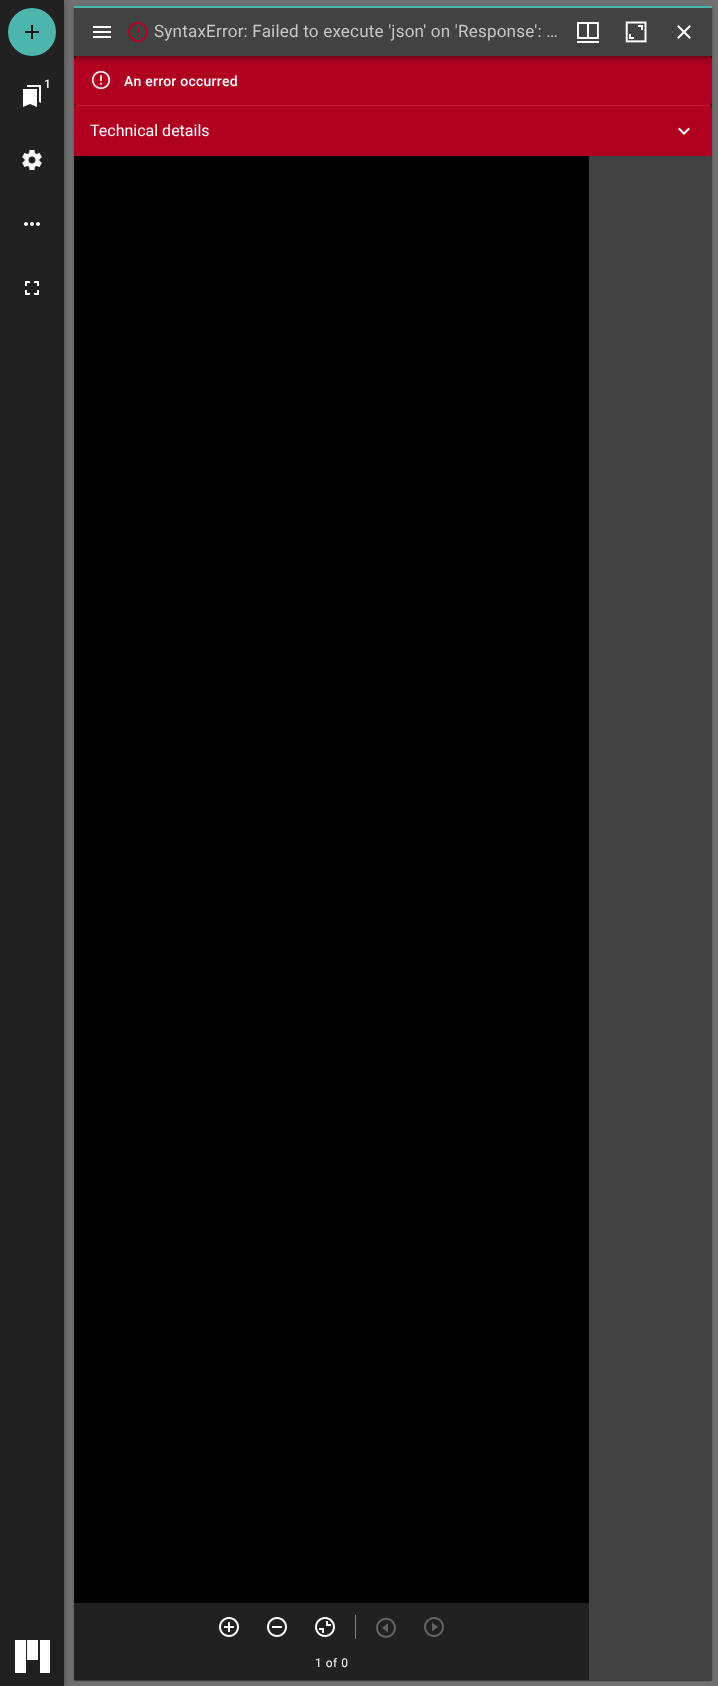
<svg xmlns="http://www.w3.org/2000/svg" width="718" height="1686">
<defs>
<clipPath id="clip1"><rect x="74" y="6" width="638" height="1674"/></clipPath>
</defs>
<rect width="100%" height="100%" fill="#707070"/>
<rect x="75" y="9" width="636" height="1672" fill="#00000033" filter="blur(0.5px)"/>
<rect x="74" y="7" width="638" height="1674" fill="#00000033" filter="blur(0.5px)"/>
<rect x="74" y="7" width="638" height="1674" fill="#00000033" filter="blur(1.5px)"/>
<rect x="74" y="56" width="638" height="1547" fill="#000"/>
<rect x="74" y="56" width="638" height="50" rx="4" fill="#b00020"/>
<image x="91" y="70" width="20" height="20" href="media/11.png"/>
<g clip-path="url(#clip1)">
<rect x="74" y="7" width="638" height="50" fill="#0000001f" filter="blur(5px)"/>
<rect x="74" y="10" width="638" height="50" fill="#00000024" filter="blur(2.5px)"/>
</g>
<rect x="75" y="9" width="636" height="48" fill="#00000033" filter="blur(2px)"/>
<rect x="74" y="8" width="638" height="48" fill="#424242"/>
<rect x="74" y="6" width="638" height="2" fill="#4db6ac"/>
<rect x="74" y="106" width="638" height="50" fill="#b00020"/>
<rect x="74" y="105" width="638" height="1" fill="#ffffff1f"/>
<rect x="74" y="1603" width="515" height="77" fill="#212121"/>
<rect y="1" width="64" height="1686" fill="#0000001f" filter="blur(5px)"/>
<rect y="4" width="64" height="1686" fill="#00000024" filter="blur(2.5px)"/>
<rect x="1" y="3" width="62" height="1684" fill="#00000033" filter="blur(2px)"/>
<rect width="64" height="1686" fill="#212121"/>
<circle cx="32" cy="32" r="24" fill="#4db6ac"/>
<image x="25" y="25" width="14" height="14" href="media/1.png"/>
<text x="44" y="88" style="font-family:Roboto;font-size:12px;font-weight:500;fill:#fff">1</text>
<image x="23" y="85" width="18" height="22" href="media/2.png"/>
<image x="22" y="150" width="20" height="20" href="media/3.png"/>
<image x="24" y="222" width="16" height="4" href="media/4.png"/>
<image x="25" y="281" width="14" height="14" href="media/5.png"/>
<rect x="15" y="1640" width="11" height="33" fill="#fff"/>
<rect x="40" y="1640" width="10" height="33" fill="#fff"/>
<rect x="27" y="1640" width="11" height="20" fill="#fff"/>
<image x="93" y="26" width="18" height="12" href="media/6.png"/>
<image x="128" y="22" width="20" height="20" href="media/7.png"/>
<text x="154" y="37" style="font-family:Roboto;font-size:17.1px;letter-spacing:0.17px;fill:#c6c6c6">SyntaxError: Failed to execute 'json' on 'Response': …</text>
<image x="577" y="22" width="22" height="21" href="media/8.png"/>
<image x="625" y="21" width="22" height="22" href="media/9.png"/>
<image x="677" y="25" width="14" height="14" href="media/10.png"/>
<text x="124" y="86" style="font-family:Roboto;font-size:14px;font-weight:500;letter-spacing:0.25px;fill:#fff">An error occurred</text>
<text x="90" y="136" style="font-family:Roboto;font-size:16px;fill:#fff">Technical details</text>
<image x="678" y="127" width="12" height="8" href="media/12.png"/>
<image x="219" y="1617" width="20" height="20" href="media/13.png"/>
<image x="267" y="1617" width="20" height="20" href="media/14.png"/>
<image x="315" y="1617" width="20" height="20" href="media/15.png"/>
<rect x="355" y="1615" width="1" height="24" fill="#808080"/>
<image x="376" y="1617" width="20" height="21" href="media/16.png"/>
<image x="424" y="1617" width="20" height="20" href="media/17.png"/>
<text x="315" y="1667" style="font-family:Roboto;font-size:12px;letter-spacing:0.5px;fill:#fff">1 of 0</text>
<rect x="589" y="156" width="123" height="1524" fill="#424242"/>
</svg>
